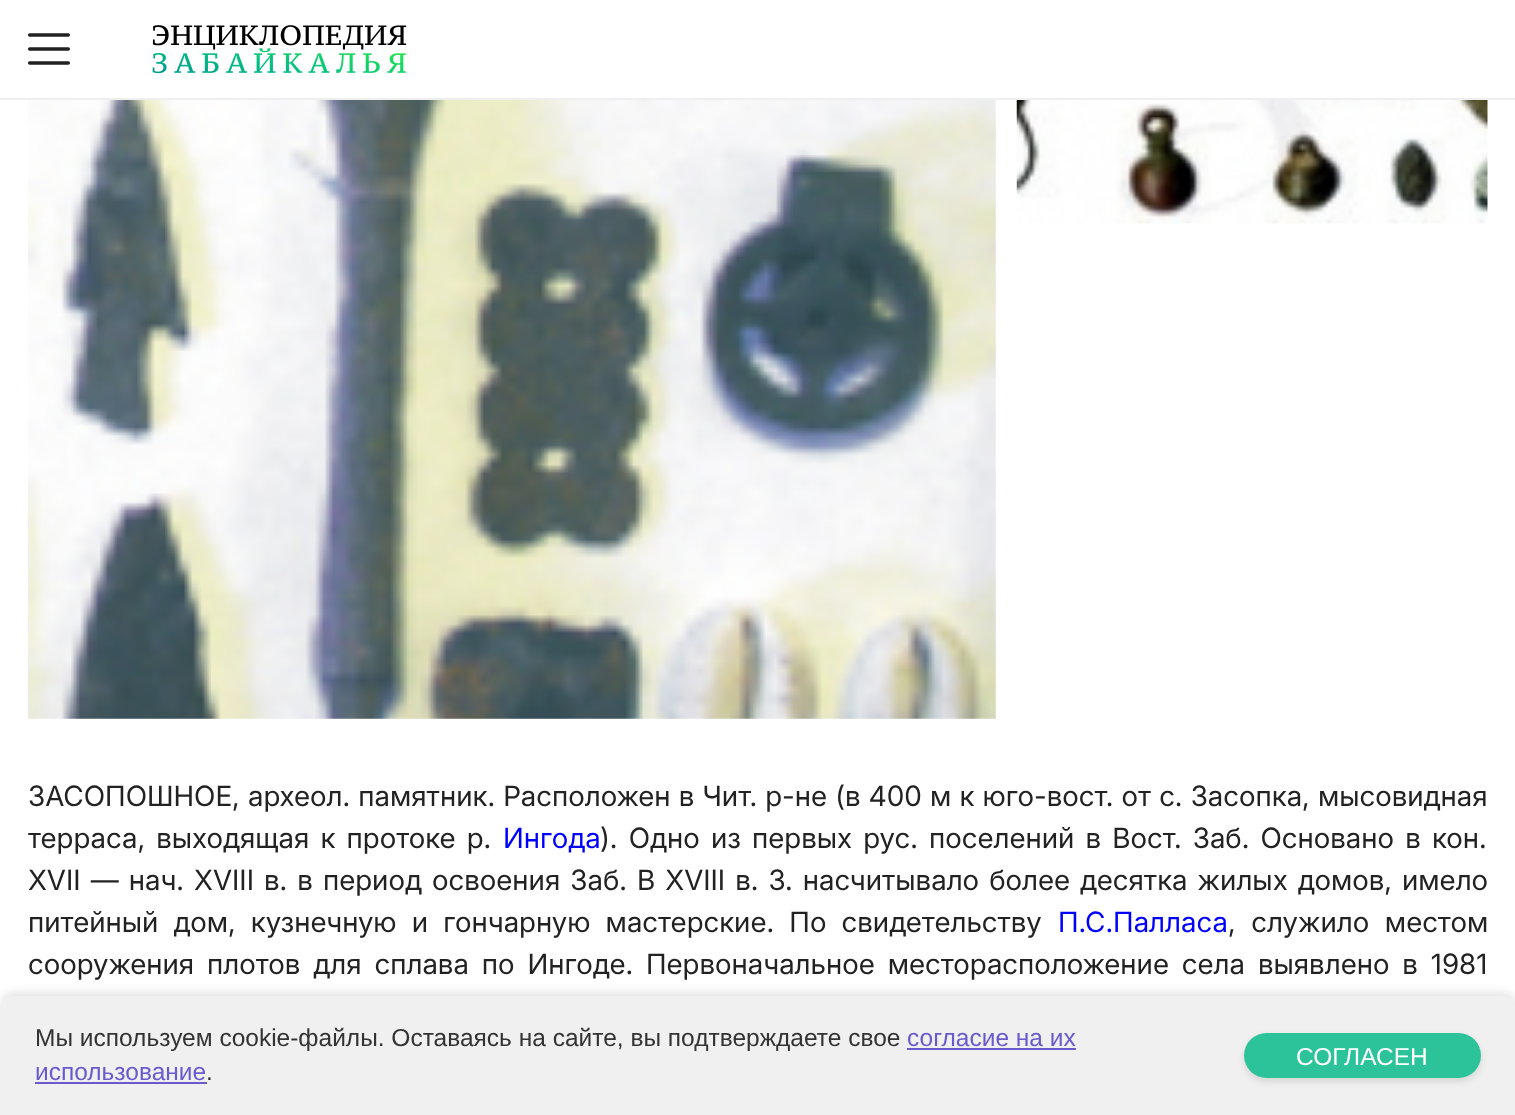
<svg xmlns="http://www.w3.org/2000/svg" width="1515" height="1115">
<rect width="100%" height="100%" fill="#fff"/>
<rect y="98" width="1515" height="2" fill="#efefef"/>
<image x="28" y="33" width="42" height="32" href="media/1.png"/>
<image x="152" y="25" width="255" height="49" href="media/2.png"/>
<image x="28" y="100" width="968" height="619" href="media/3.png"/>
<image x="1016" y="100" width="472" height="124" href="media/4.png"/>
<text x="28" y="806" word-spacing="0.5" style="font-family:Inter;font-size:28px;fill:#222">ЗАСОПОШНОЕ, археол. памятник. Расположен в Чит. р-не (в 400 м к юго-вост. от с. Засопка, мысовидная</text>
<text x="28" y="848" word-spacing="3.5" style="font-family:Inter;font-size:28px;fill:#222">терраса, выходящая к протоке р.</text>
<text x="503" y="848" style="font-family:Inter;font-size:28px;fill:#00f">Ингода</text>
<text x="600" y="848" word-spacing="3.5" style="font-family:Inter;font-size:28px;fill:#222">). Одно из первых рус. поселений в Вост. Заб. Основано в кон.</text>
<text x="28" y="890" word-spacing="2.4" style="font-family:Inter;font-size:28px;fill:#222">XVII — нач. XVIII в. в период освоения Заб. В XVIII в. З. насчитывало более десятка жилых домов, имело</text>
<text x="28" y="932" word-spacing="7.5" style="font-family:Inter;font-size:28px;fill:#222">питейный дом, кузнечную и гончарную мастерские. По свидетельству</text>
<text x="1058" y="932" style="font-family:Inter;font-size:28px;fill:#00f">П.С.Палласа</text>
<text x="1228" y="932" word-spacing="8" style="font-family:Inter;font-size:28px;fill:#222">, служило местом</text>
<text x="28" y="974" word-spacing="5.25" style="font-family:Inter;font-size:28px;fill:#222">сооружения плотов для сплава по Ингоде. Первоначальное месторасположение села выявлено в 1981</text>
<rect y="992" width="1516" height="121" rx="14" fill="#0000001a" filter="blur(4.5px)"/>
<path d="M14 996h1488c7.5 0 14 6.5 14 14v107h-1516v-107c0-7.5 6.5-14 14-14z" fill="#f0f0f0"/>
<text x="35" y="1046" style="font-family:Liberation Sans;font-size:24.5px;fill:#333">Мы используем cookie-файлы. Оставаясь на сайте, вы подтверждаете свое</text>
<text x="907" y="1046" style="font-family:Liberation Sans;font-size:24.5px;fill:#6a5acd">согласие на их</text>
<rect x="907" y="1048" width="169" height="2" fill="#6a5acd"/>
<text x="35" y="1080" style="font-family:Liberation Sans;font-size:24.5px;fill:#6a5acd">использование</text>
<rect x="35" y="1082" width="172" height="2" fill="#6a5acd"/>
<text x="206" y="1080" style="font-family:Liberation Sans;font-size:24.5px;fill:#333">.</text>
<rect x="1244" y="1036" width="237" height="46" rx="23" fill="#0000001a" filter="blur(3.5px)"/>
<rect x="1244" y="1033" width="237" height="45" rx="22.5" fill="#2cc39a"/>
<text x="1296" y="1065" style="font-family:Liberation Sans;font-size:24.5px;fill:#fff">СОГЛАСЕН</text>
</svg>
